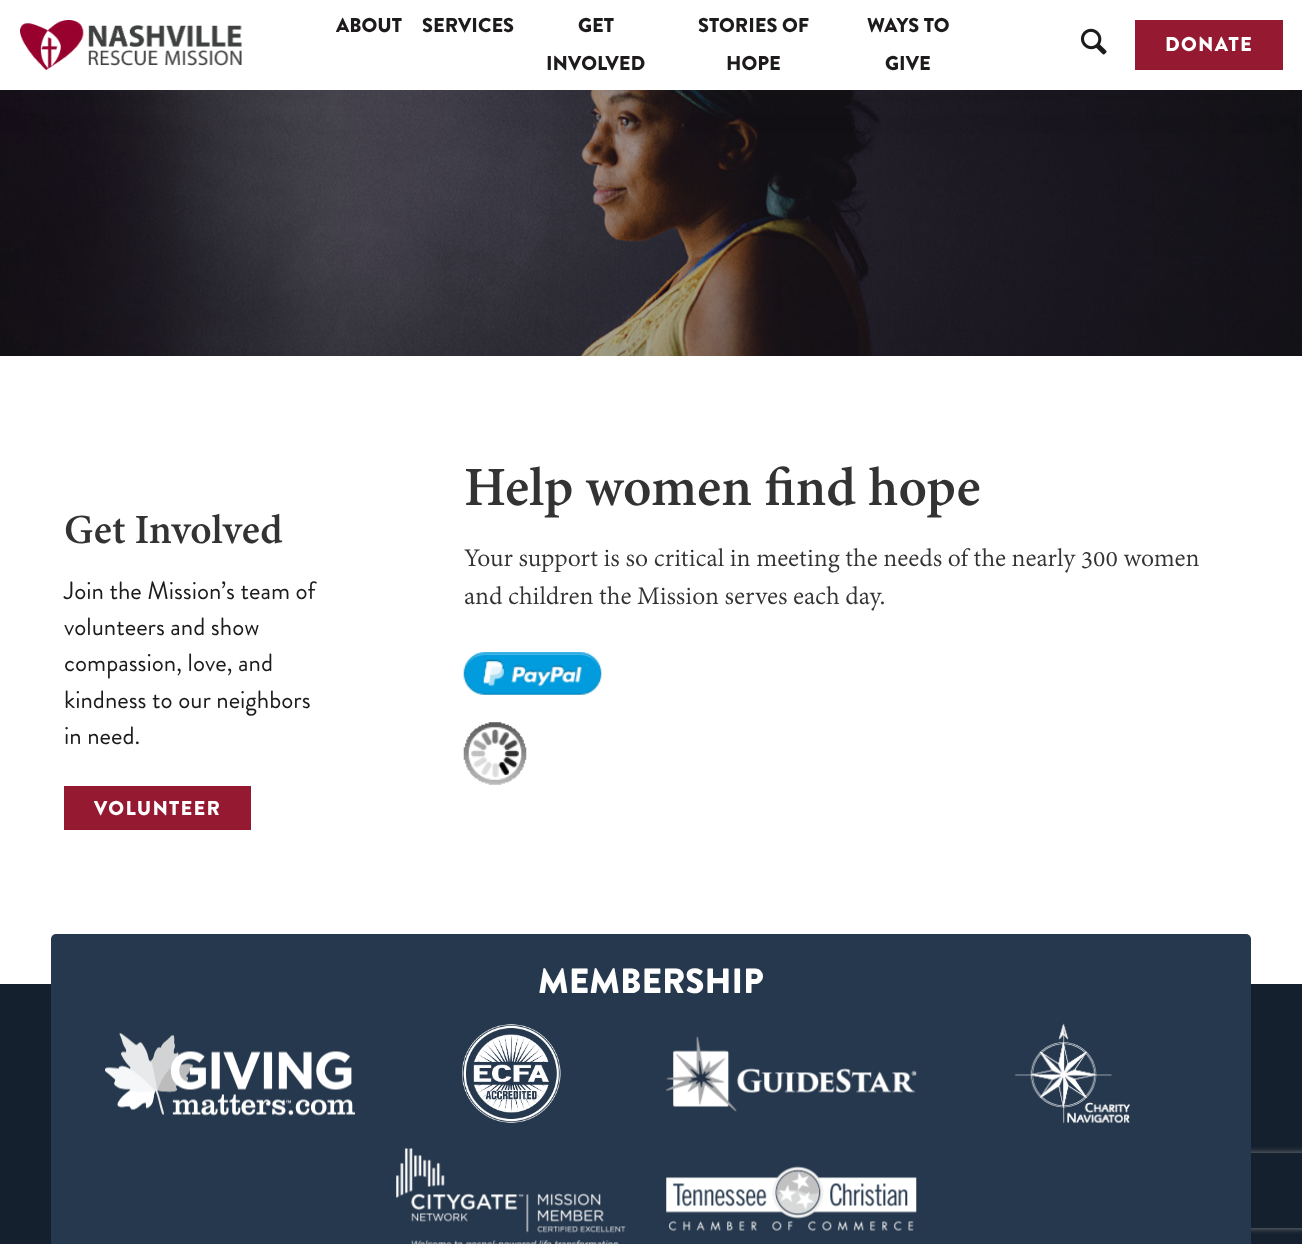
<svg xmlns="http://www.w3.org/2000/svg" width="1302" height="1244">
<defs>
<clipPath id="clip1"><path d="M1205 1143h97v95h-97zm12.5 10h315c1.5 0 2.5 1 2.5 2.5v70c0 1.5-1 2.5-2.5 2.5h-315c-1.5 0-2.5-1-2.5-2.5v-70c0-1.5 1-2.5 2.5-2.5z" clip-rule="evenodd"/></clipPath>
</defs>
<rect width="100%" height="100%" fill="#fff"/>
<image x="0" y="90" width="1302" height="266" href="media/3.png"/>
<rect y="5" width="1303" height="90" fill="#1d1b1b1a" filter="blur(20px)"/>
<rect width="1302" height="90" fill="#fff"/>
<image x="20" y="20" width="222" height="50" href="media/1.png"/>
<text x="336" y="32" style="font-family:Brandon Grotesque;font-size:20px;font-weight:900;fill:#1d1b1b">ABOUT</text>
<text x="422" y="32" style="font-family:Brandon Grotesque;font-size:20px;font-weight:900;fill:#1d1b1b">SERVICES</text>
<text x="578" y="32" style="font-family:Brandon Grotesque;font-size:20px;font-weight:900;fill:#1d1b1b">GET</text>
<text x="546" y="70" style="font-family:Brandon Grotesque;font-size:20px;font-weight:900;fill:#1d1b1b">INVOLVED</text>
<text x="698" y="32" style="font-family:Brandon Grotesque;font-size:20px;font-weight:900;fill:#1d1b1b">STORIES OF</text>
<text x="726" y="70" style="font-family:Brandon Grotesque;font-size:20px;font-weight:900;fill:#1d1b1b">HOPE</text>
<text x="867" y="32" style="font-family:Brandon Grotesque;font-size:20px;font-weight:900;fill:#1d1b1b">WAYS TO</text>
<text x="885" y="70" style="font-family:Brandon Grotesque;font-size:20px;font-weight:900;fill:#1d1b1b">GIVE</text>
<image x="1080" y="28" width="27" height="27" href="media/2.png"/>
<rect x="1135" y="20" width="148" height="50" fill="#961932"/>
<text x="1165" y="51" style="font-family:Brandon Grotesque;font-size:20px;font-weight:900;letter-spacing:1.25px;fill:#fff">DONATE</text>
<text x="64" y="543" style="font-family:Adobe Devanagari;font-size:45px;font-weight:bold;fill:#333">Get Involved</text>
<text x="64" y="599" style="font-family:Brandon Grotesque;font-size:25px;fill:#1d1b1b">Join the Mission’s team of</text>
<text x="64" y="635" style="font-family:Brandon Grotesque;font-size:25px;fill:#1d1b1b">volunteers and show</text>
<text x="64" y="671" style="font-family:Brandon Grotesque;font-size:25px;fill:#1d1b1b">compassion, love, and</text>
<text x="64" y="708" style="font-family:Brandon Grotesque;font-size:25px;fill:#1d1b1b">kindness to our neighbors</text>
<text x="64" y="744" style="font-family:Brandon Grotesque;font-size:25px;fill:#1d1b1b">in need.</text>
<rect x="64" y="786" width="187" height="44" fill="#961932"/>
<text x="94" y="815" style="font-family:Brandon Grotesque;font-size:20px;font-weight:900;letter-spacing:1.25px;fill:#fff">VOLUNTEER</text>
<text x="464" y="505" style="font-family:Adobe Devanagari;font-size:60px;font-weight:bold;fill:#333">Help women find hope</text>
<text x="464" y="566" style="font-family:Adobe Devanagari;font-size:27.5px;fill:#333">Your support is so critical in meeting the needs of the nearly 300 women</text>
<text x="464" y="604" style="font-family:Adobe Devanagari;font-size:27.5px;fill:#333">and children the Mission serves each day.</text>
<image x="463" y="652" width="139" height="43" href="media/4.png"/>
<image x="463" y="722" width="64" height="63" href="media/5.png"/>
<rect y="984" width="1302" height="260" fill="#14202e"/>
<g clip-path="url(#clip1)">
<rect x="1215" y="1153" width="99" height="75" rx="2.5" fill="#808080" filter="blur(3px)"/>
</g>
<rect x="51" y="934" width="1200" height="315" rx="5" fill="#26384d"/>
<text x="538" y="993" style="font-family:Brandon Grotesque;font-size:35px;font-weight:900;fill:#fff">MEMBERSHIP</text>
<image x="105" y="1032" width="250" height="84" href="media/6.png"/>
<image x="462" y="1024" width="99" height="99" href="media/7.png"/>
<image x="666" y="1036" width="251" height="76" href="media/8.png"/>
<image x="1015" y="1023" width="115" height="101" href="media/9.png"/>
<image x="396" y="1148" width="230" height="96" href="media/10.png"/>
<image x="666" y="1166" width="251" height="65" href="media/11.png"/>
</svg>
